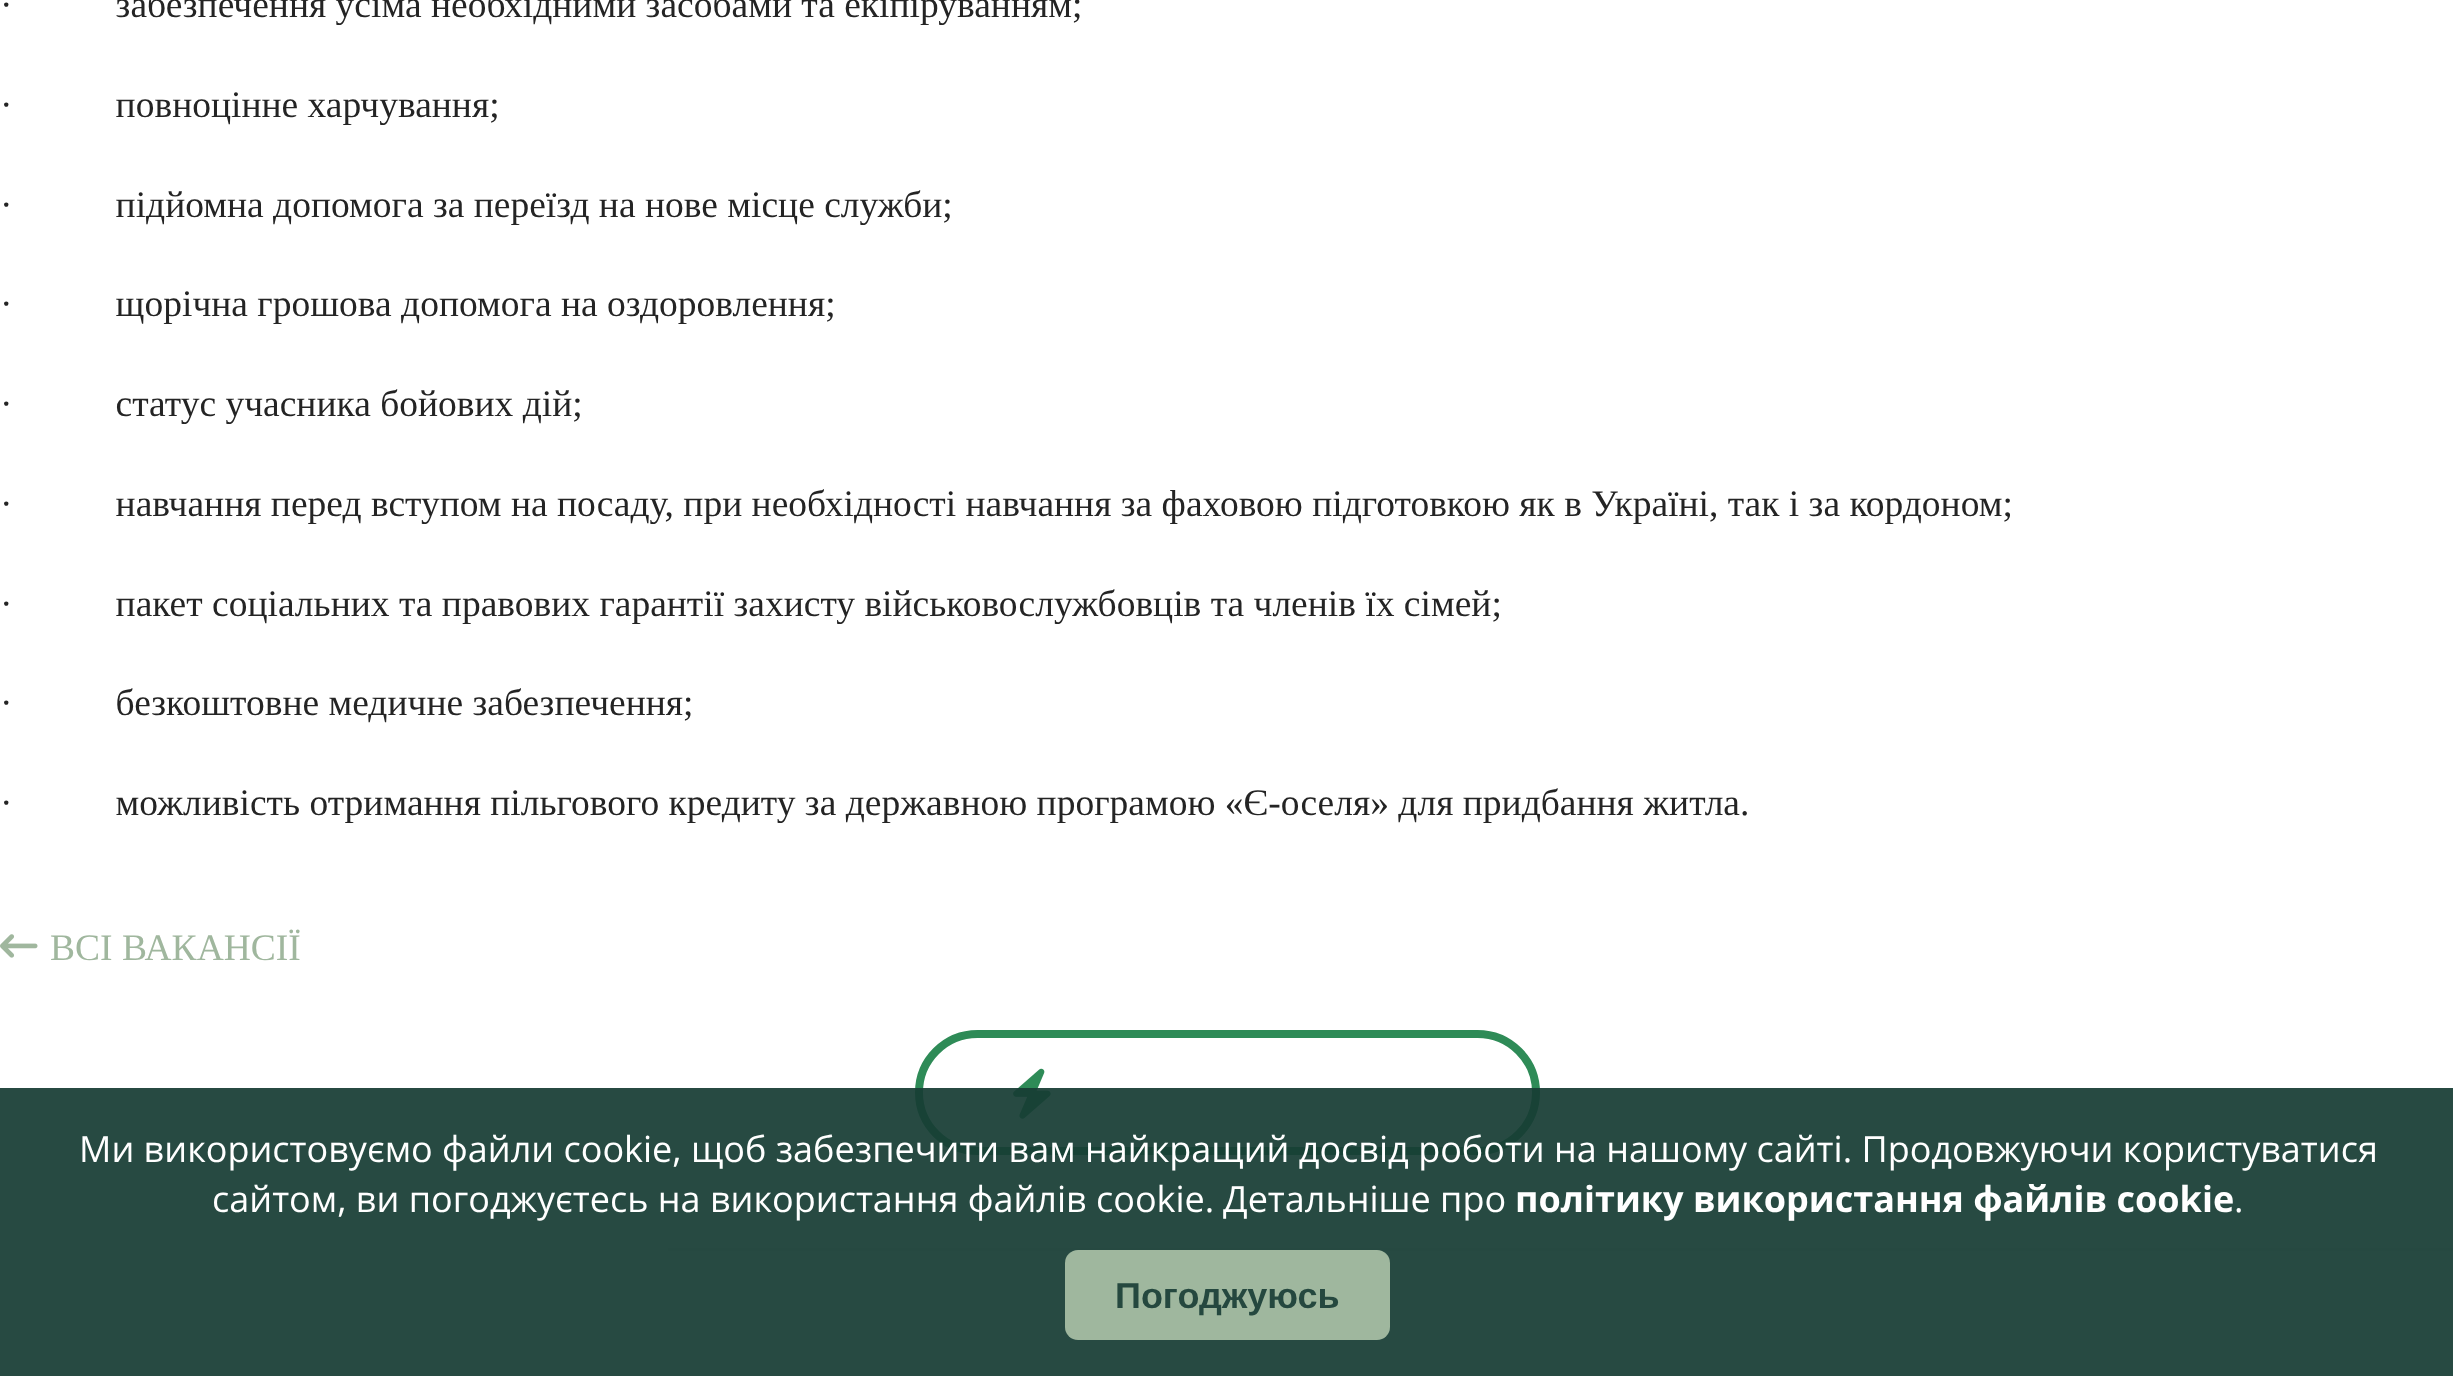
<svg xmlns="http://www.w3.org/2000/svg" width="2453" height="1376">
<rect width="100%" height="100%" fill="#fff"/>
<text x="0" y="17" style="font-family:Liberation Serif;font-size:37.5px;fill:#242424" xml:space="preserve">·           забезпечення усіма необхідними засобами та екіпіруванням;</text>
<text x="0" y="117" style="font-family:Liberation Serif;font-size:37.5px;fill:#242424" xml:space="preserve">·           повноцінне харчування;</text>
<text x="0" y="217" style="font-family:Liberation Serif;font-size:37.5px;fill:#242424" xml:space="preserve">·           підйомна допомога за переїзд на нове місце служби;</text>
<text x="0" y="316" style="font-family:Liberation Serif;font-size:37.5px;fill:#242424" xml:space="preserve">·           щорічна грошова допомога на оздоровлення;</text>
<text x="0" y="416" style="font-family:Liberation Serif;font-size:37.5px;fill:#242424" xml:space="preserve">·           статус учасника бойових дій;</text>
<text x="0" y="516" style="font-family:Liberation Serif;font-size:37.5px;fill:#242424" xml:space="preserve">·           навчання перед вступом на посаду, при необхідності навчання за фаховою підготовкою як в Україні, так і за кордоном;</text>
<text x="0" y="616" style="font-family:Liberation Serif;font-size:37.5px;fill:#242424" xml:space="preserve">·           пакет соціальних та правових гарантії захисту військовослужбовців та членів їх сімей;</text>
<text x="0" y="715" style="font-family:Liberation Serif;font-size:37.5px;fill:#242424" xml:space="preserve">·           безкоштовне медичне забезпечення;</text>
<text x="0" y="815" style="font-family:Liberation Serif;font-size:37.5px;fill:#242424" xml:space="preserve">·           можливість отримання пільгового кредиту за державною програмою «Є-оселя» для придбання житла.</text>
<image x="0" y="934" width="38" height="24" href="media/1.png"/>
<text x="50" y="960" style="font-family:Liberation Serif;font-size:37.5px;fill:#a0b79e">ВСІ ВАКАНСІЇ</text>
<rect x="919" y="1034" width="617" height="117" rx="58.5" fill="none" stroke="#2e8b57" stroke-width="8"/>
<image x="1013" y="1068" width="38" height="51" href="media/2.png"/>
<rect x="668" y="1248" width="1785" height="3" fill="#ebebeb"/>
<rect y="1088" width="2453" height="288" fill="#173c34ed"/>
<text x="79" y="1162" style="font-family:Open Sans;font-size:36px;fill:#fff">Ми використовуємо файли cookie, щоб забезпечити вам найкращий досвід роботи на нашому сайті. Продовжуючи користуватися</text>
<text x="212" y="1212" style="font-family:Open Sans;font-size:36px;fill:#fff">сайтом, ви погоджуєтесь на використання файлів cookie.</text>
<text x="1223" y="1212" style="font-family:Open Sans;font-size:36px;fill:#fff">Детальніше про</text>
<text x="1515" y="1212" style="font-family:Open Sans;font-size:36px;font-weight:bold;fill:#fff">політику використання файлів cookie</text>
<text x="2234" y="1212" style="font-family:Open Sans;font-size:36px;fill:#fff">.</text>
<rect x="1065" y="1250" width="325" height="90" rx="13" fill="#9fb79e"/>
<text x="1115" y="1308" style="font-family:Liberation Sans;font-size:36px;font-weight:bold;fill:#25483f">Погоджуюсь</text>
</svg>
